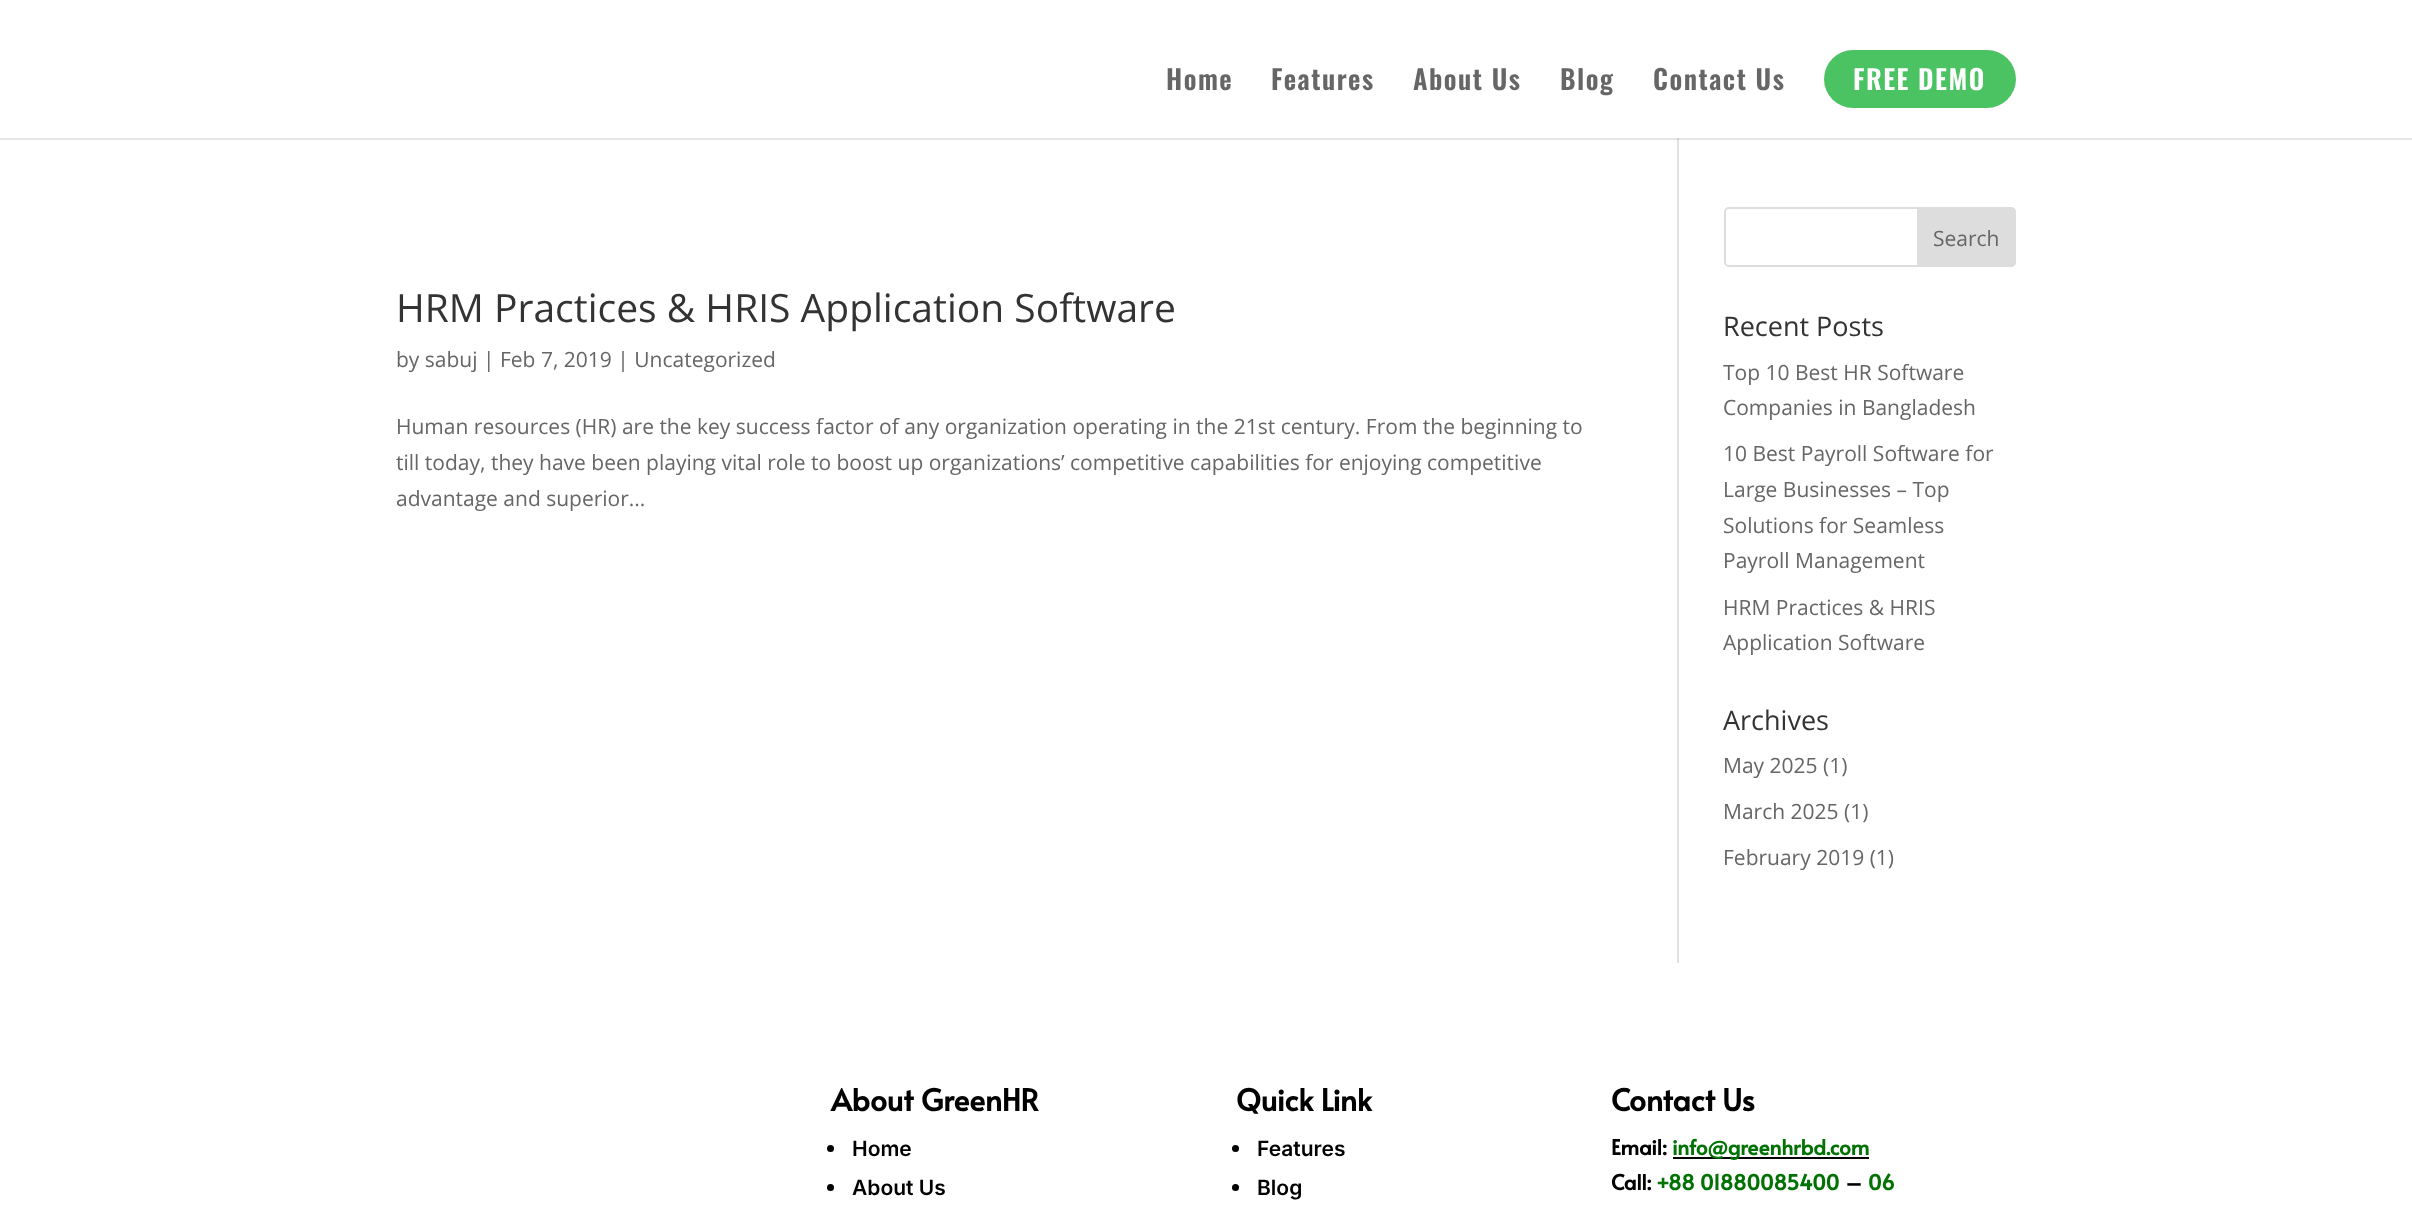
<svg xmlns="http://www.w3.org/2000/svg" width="2412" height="1218">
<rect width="100%" height="100%" fill="#fff"/>
<rect y="138" width="2412" height="2" fill="#e6e6e6"/>
<text x="1166" y="90" style="font-family:Oswald;font-size:27px;font-weight:600;letter-spacing:1.5px;fill:#666">Home</text>
<text x="1271" y="90" style="font-family:Oswald;font-size:27px;font-weight:600;letter-spacing:1.5px;fill:#666">Features</text>
<text x="1413" y="90" style="font-family:Oswald;font-size:27px;font-weight:600;letter-spacing:1.5px;fill:#666">About Us</text>
<text x="1560" y="90" style="font-family:Oswald;font-size:27px;font-weight:600;letter-spacing:1.5px;fill:#666">Blog</text>
<text x="1653" y="90" style="font-family:Oswald;font-size:27px;font-weight:600;letter-spacing:1.5px;fill:#666">Contact Us</text>
<rect x="1824" y="50" width="192" height="58" rx="29" fill="#4bc363"/>
<text x="1853" y="90" style="font-family:Oswald;font-size:27px;font-weight:600;letter-spacing:1.5px;fill:#fff">FREE DEMO</text>
<rect x="1677" y="140" width="2" height="823" fill="#e2e2e2"/>
<rect x="1677" y="138" width="2" height="2" fill="#cbcbcb"/>
<text x="396" y="322" style="font-family:Open Sans;font-size:39px;fill:#333">HRM Practices &amp; HRIS Application Software</text>
<text x="396" y="367" style="font-family:Open Sans;font-size:21px;fill:#666">by sabuj | Feb 7, 2019 | Uncategorized</text>
<text x="396" y="434" style="font-family:Open Sans;font-size:21px;fill:#666">Human resources (HR) are the key success factor of any organization operating in the 21st century. From the beginning to</text>
<text x="396" y="470" style="font-family:Open Sans;font-size:21px;fill:#666">till today, they have been playing vital role to boost up organizations’ competitive capabilities for enjoying competitive</text>
<text x="396" y="506" style="font-family:Open Sans;font-size:21px;fill:#666">advantage and superior...</text>
<rect x="1725" y="208" width="290" height="58" rx="4" fill="none" stroke="#ddd" stroke-width="2"/>
<path d="M1918 208h93c2 0 4 2 4 4v50c0 2-2 4-4 4h-93z" fill="#ddd" stroke="#ddd" stroke-width="2"/>
<text x="1933" y="246" style="font-family:Open Sans;font-size:21px;fill:#666">Search</text>
<text x="1723" y="336" style="font-family:Open Sans;font-size:27px;fill:#333">Recent Posts</text>
<text x="1723" y="380" style="font-family:Open Sans;font-size:21px;fill:#666">Top 10 Best HR Software</text>
<text x="1723" y="415" style="font-family:Open Sans;font-size:21px;fill:#666">Companies in Bangladesh</text>
<text x="1723" y="461" style="font-family:Open Sans;font-size:21px;fill:#666">10 Best Payroll Software for</text>
<text x="1723" y="497" style="font-family:Open Sans;font-size:21px;fill:#666">Large Businesses – Top</text>
<text x="1723" y="533" style="font-family:Open Sans;font-size:21px;fill:#666">Solutions for Seamless</text>
<text x="1723" y="568" style="font-family:Open Sans;font-size:21px;fill:#666">Payroll Management</text>
<text x="1723" y="615" style="font-family:Open Sans;font-size:21px;fill:#666">HRM Practices &amp; HRIS</text>
<text x="1723" y="650" style="font-family:Open Sans;font-size:21px;fill:#666">Application Software</text>
<text x="1723" y="730" style="font-family:Open Sans;font-size:27px;fill:#333">Archives</text>
<text x="1723" y="773" style="font-family:Open Sans;font-size:21px;fill:#666">May 2025 (1)</text>
<text x="1723" y="819" style="font-family:Open Sans;font-size:21px;fill:#666">March 2025 (1)</text>
<text x="1723" y="865" style="font-family:Open Sans;font-size:21px;fill:#666">February 2019 (1)</text>
<text x="831" y="1111" style="font-family:Alata;font-size:30px;font-weight:bold;fill:#000">About GreenHR</text>
<circle cx="830.5" cy="1148.5" r="3.5" fill="#000"/>
<text x="852" y="1156" style="font-family:Inter;font-size:21px;font-weight:600;fill:#000">Home</text>
<circle cx="830.5" cy="1187.5" r="3.5" fill="#000"/>
<text x="852" y="1195" style="font-family:Inter;font-size:21px;font-weight:600;fill:#000">About Us</text>
<text x="1236" y="1111" style="font-family:Alata;font-size:30px;font-weight:bold;fill:#000">Quick Link</text>
<circle cx="1235.5" cy="1148.5" r="3.5" fill="#000"/>
<text x="1257" y="1156" style="font-family:Inter;font-size:21px;font-weight:600;fill:#000">Features</text>
<circle cx="1235.5" cy="1187.5" r="3.5" fill="#000"/>
<text x="1257" y="1195" style="font-family:Inter;font-size:21px;font-weight:600;fill:#000">Blog</text>
<text x="1611" y="1111" style="font-family:Alata;font-size:30px;font-weight:bold;fill:#000">Contact Us</text>
<text x="1611" y="1155" style="font-family:Alata;font-size:21px;font-weight:bold;fill:#000">Email:</text>
<rect x="1673" y="1157" width="196" height="2" fill="#000"/>
<text x="1672" y="1155" style="font-family:Alata;font-size:21px;font-weight:bold;fill:#027204">info@greenhrbd.com</text>
<text x="1611" y="1190" style="font-family:Alata;font-size:21px;font-weight:bold;fill:#000">Call:</text>
<text x="1656" y="1190" style="font-family:Alata;font-size:21px;font-weight:bold;fill:#027204">+88 01880085400</text>
<text x="1845" y="1190" style="font-family:Alata;font-size:21px;font-weight:bold;fill:#000">–</text>
<text x="1868" y="1190" style="font-family:Alata;font-size:21px;font-weight:bold;fill:#027204">06</text>
</svg>
